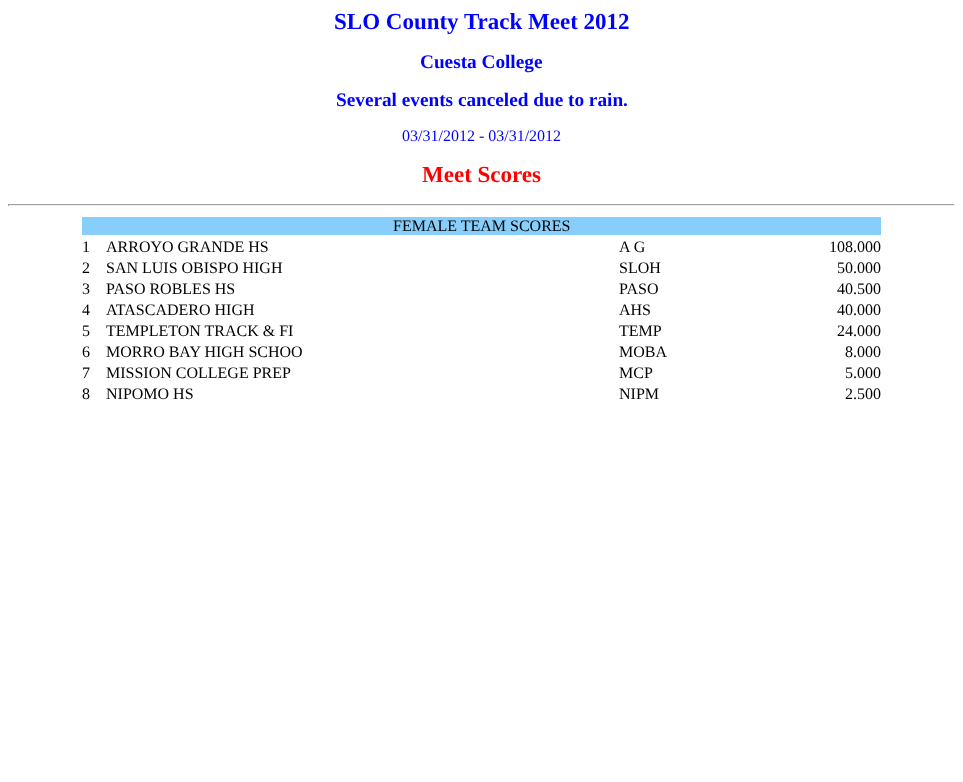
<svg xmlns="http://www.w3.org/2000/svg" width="963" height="782">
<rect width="100%" height="100%" fill="#fff"/>
<text x="334" y="29" style="font-family:Liberation Serif;font-size:23px;font-weight:bold;fill:#00f">SLO County Track Meet 2012</text>
<text x="420" y="68" style="font-family:Liberation Serif;font-size:19.25px;font-weight:bold;fill:#00f">Cuesta College</text>
<text x="336" y="106" style="font-family:Liberation Serif;font-size:19.25px;font-weight:bold;fill:#00f">Several events canceled due to rain.</text>
<text x="402" y="141" style="font-family:Liberation Serif;font-size:16px;fill:#00f">03/31/2012 - 03/31/2012</text>
<text x="422" y="182" style="font-family:Liberation Serif;font-size:23px;font-weight:bold;fill:#f00">Meet Scores</text>
<rect x="8" y="204" width="947" height="1" fill="#9f9f9f"/>
<rect x="954" y="204" width="1" height="2" fill="#eee"/>
<rect x="8" y="205" width="947" height="1" fill="#eee"/>
<rect x="8" y="204" width="1" height="2" fill="#9f9f9f"/>
<rect x="82" y="217" width="799" height="18" fill="#87cefa"/>
<text x="393" y="231" style="font-family:Liberation Serif;font-size:16px;fill:#000">FEMALE TEAM SCORES</text>
<text x="82" y="252" style="font-family:Liberation Serif;font-size:16px;fill:#000">1</text>
<text x="106" y="252" style="font-family:Liberation Serif;font-size:16px;fill:#000">ARROYO GRANDE HS</text>
<text x="619" y="252" style="font-family:Liberation Serif;font-size:16px;fill:#000">A G</text>
<text x="829" y="252" style="font-family:Liberation Serif;font-size:16px;fill:#000">108.000</text>
<text x="82" y="273" style="font-family:Liberation Serif;font-size:16px;fill:#000">2</text>
<text x="106" y="273" style="font-family:Liberation Serif;font-size:16px;fill:#000">SAN LUIS OBISPO HIGH</text>
<text x="619" y="273" style="font-family:Liberation Serif;font-size:16px;fill:#000">SLOH</text>
<text x="837" y="273" style="font-family:Liberation Serif;font-size:16px;fill:#000">50.000</text>
<text x="82" y="294" style="font-family:Liberation Serif;font-size:16px;fill:#000">3</text>
<text x="106" y="294" style="font-family:Liberation Serif;font-size:16px;fill:#000">PASO ROBLES HS</text>
<text x="619" y="294" style="font-family:Liberation Serif;font-size:16px;fill:#000">PASO</text>
<text x="837" y="294" style="font-family:Liberation Serif;font-size:16px;fill:#000">40.500</text>
<text x="82" y="315" style="font-family:Liberation Serif;font-size:16px;fill:#000">4</text>
<text x="106" y="315" style="font-family:Liberation Serif;font-size:16px;fill:#000">ATASCADERO HIGH</text>
<text x="619" y="315" style="font-family:Liberation Serif;font-size:16px;fill:#000">AHS</text>
<text x="837" y="315" style="font-family:Liberation Serif;font-size:16px;fill:#000">40.000</text>
<text x="82" y="336" style="font-family:Liberation Serif;font-size:16px;fill:#000">5</text>
<text x="106" y="336" style="font-family:Liberation Serif;font-size:16px;fill:#000">TEMPLETON TRACK &amp; FI</text>
<text x="619" y="336" style="font-family:Liberation Serif;font-size:16px;fill:#000">TEMP</text>
<text x="837" y="336" style="font-family:Liberation Serif;font-size:16px;fill:#000">24.000</text>
<text x="82" y="357" style="font-family:Liberation Serif;font-size:16px;fill:#000">6</text>
<text x="106" y="357" style="font-family:Liberation Serif;font-size:16px;fill:#000">MORRO BAY HIGH SCHOO</text>
<text x="619" y="357" style="font-family:Liberation Serif;font-size:16px;fill:#000">MOBA</text>
<text x="845" y="357" style="font-family:Liberation Serif;font-size:16px;fill:#000">8.000</text>
<text x="82" y="378" style="font-family:Liberation Serif;font-size:16px;fill:#000">7</text>
<text x="106" y="378" style="font-family:Liberation Serif;font-size:16px;fill:#000">MISSION COLLEGE PREP</text>
<text x="619" y="378" style="font-family:Liberation Serif;font-size:16px;fill:#000">MCP</text>
<text x="845" y="378" style="font-family:Liberation Serif;font-size:16px;fill:#000">5.000</text>
<text x="82" y="399" style="font-family:Liberation Serif;font-size:16px;fill:#000">8</text>
<text x="106" y="399" style="font-family:Liberation Serif;font-size:16px;fill:#000">NIPOMO HS</text>
<text x="619" y="399" style="font-family:Liberation Serif;font-size:16px;fill:#000">NIPM</text>
<text x="845" y="399" style="font-family:Liberation Serif;font-size:16px;fill:#000">2.500</text>
</svg>
